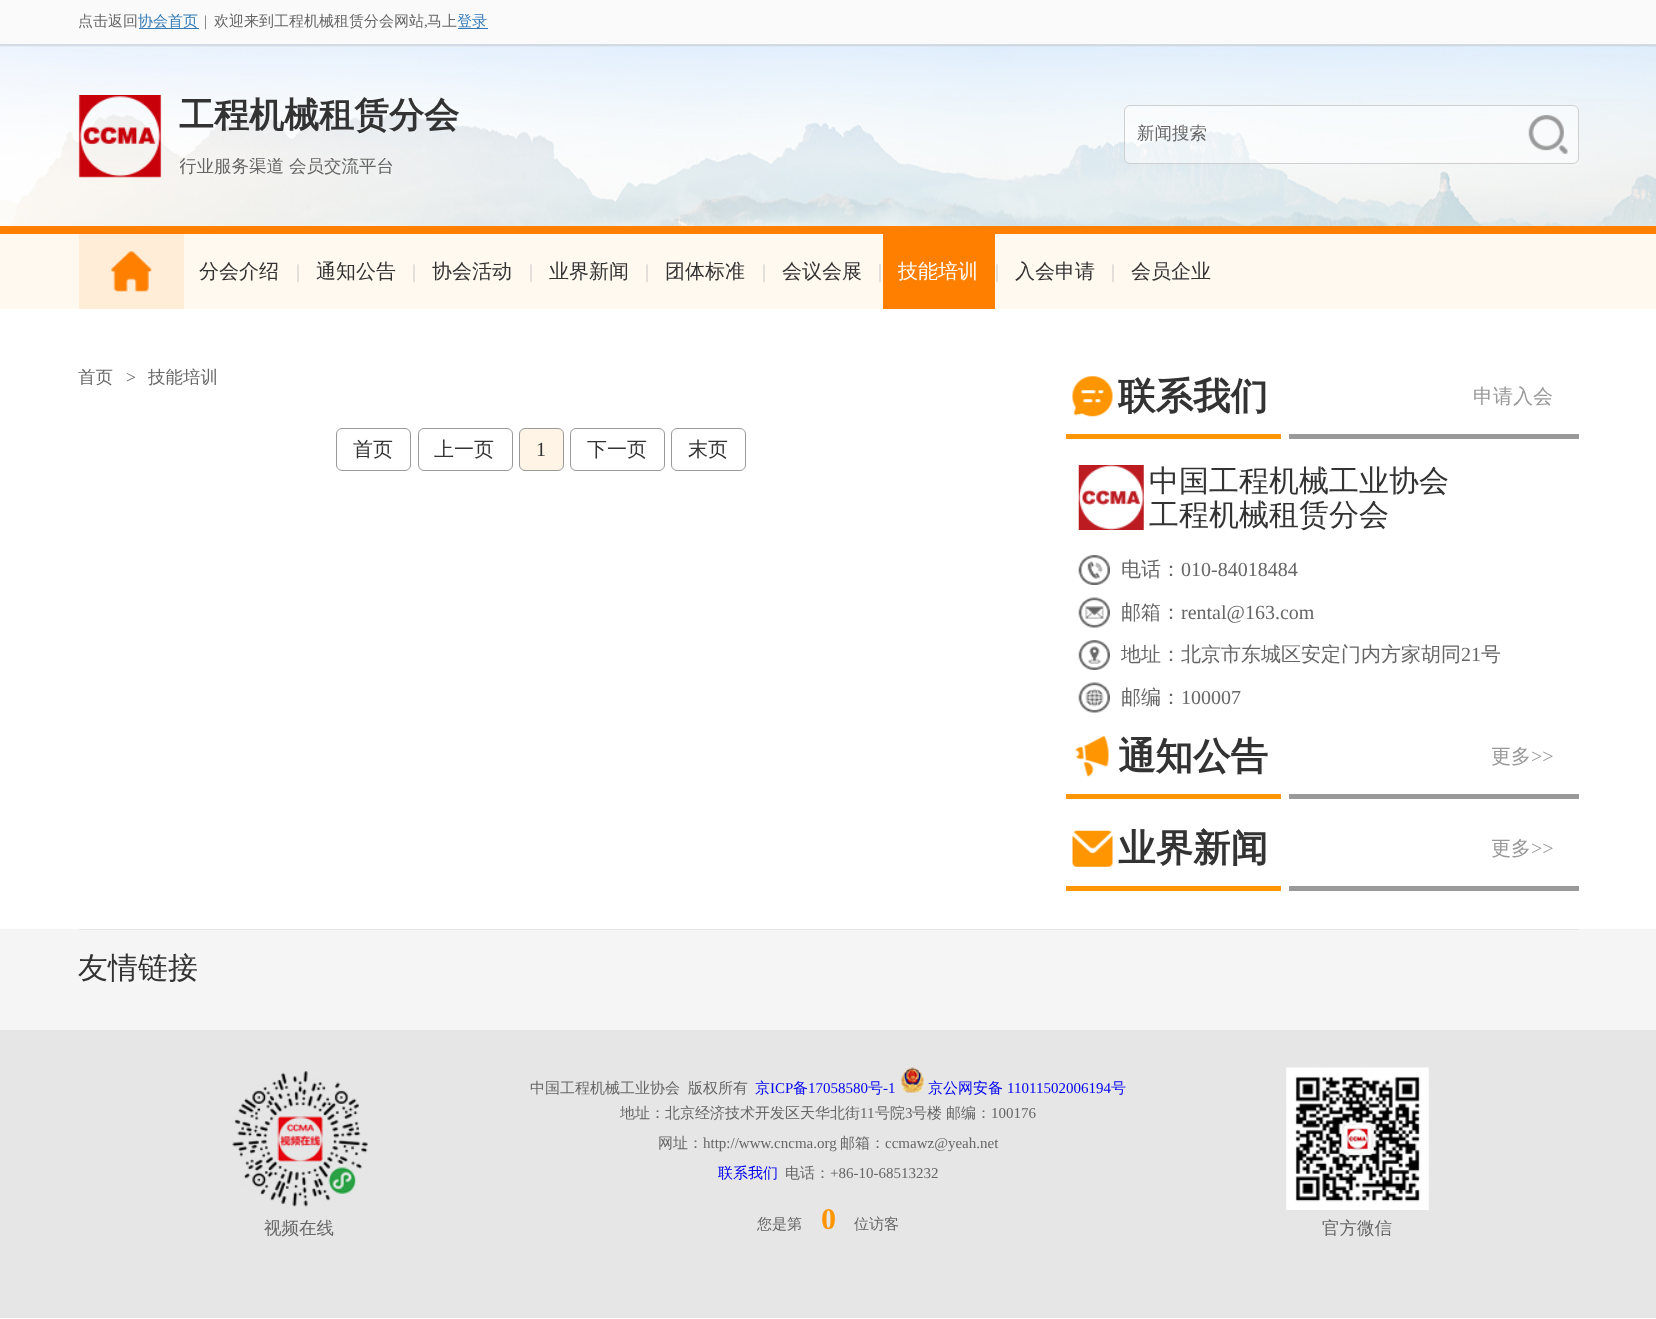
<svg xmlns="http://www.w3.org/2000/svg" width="1656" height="1319">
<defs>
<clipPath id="clip1"><rect x="180" y="158" width="880" height="20"/></clipPath>
</defs>
<rect width="100%" height="100%" fill="#fff"/>
<rect width="1656" height="44" fill="#fafafa"/>
<rect y="44" width="1656" height="1" fill="#d2dae4"/>
<text x="78" y="26" style="font-family:WenQuanYi Zen Hei;font-size:15px;font-weight:500;fill:#666">点击返回</text>
<rect x="139" y="28" width="60" height="1" fill="#337ab7"/>
<text x="138" y="26" style="font-family:WenQuanYi Zen Hei;font-size:15px;font-weight:500;fill:#337ab7">协会首页</text>
<text x="204" y="26" style="font-family:Liberation Serif;font-size:15px;fill:#666">|</text>
<text x="214" y="26" style="font-family:WenQuanYi Zen Hei;font-size:15px;font-weight:500;fill:#666">欢迎来到工程机械租赁分会网站</text>
<text x="424" y="26" style="font-family:Liberation Serif;font-size:15px;fill:#666">,</text>
<text x="427" y="26" style="font-family:WenQuanYi Zen Hei;font-size:15px;font-weight:500;fill:#666">马上</text>
<text x="457" y="26" style="font-family:WenQuanYi Zen Hei;font-size:15px;font-weight:500;fill:#337ab7">登录</text>
<rect x="458" y="28" width="30" height="1" fill="#337ab7"/>
<image x="0" y="45" width="1656" height="181" href="media/1.png"/>
<rect y="226" width="1656" height="8" fill="#ff7f00"/>
<image x="78" y="95" width="84" height="83" href="media/2.png"/>
<text x="179" y="127" style="font-family:WenQuanYi Zen Hei;font-size:35px;font-weight:bold;fill:#333">工程机械租赁分会</text>
<g clip-path="url(#clip1)">
<text x="179" y="172" style="font-family:WenQuanYi Zen Hei;font-size:17.5px;font-weight:500;fill:#666">行业服务渠道</text>
<text x="289" y="172" style="font-family:WenQuanYi Zen Hei;font-size:17.5px;font-weight:500;fill:#666">会员交流平台</text>
</g>
<rect x="1124.5" y="105.5" width="454" height="58" rx="5.5" fill="#ffffff80" stroke="#cfcfcf"/>
<text x="1137" y="139" style="font-family:WenQuanYi Zen Hei;font-size:17.5px;font-weight:500;fill:#666">新闻搜索</text>
<image x="1528" y="115" width="40" height="39" href="media/3.png"/>
<rect y="234" width="1656" height="75" fill="#fff9f0"/>
<rect x="79" y="234" width="105" height="75" fill="#ffedd8"/>
<image x="111" y="251" width="41" height="41" href="media/4.png"/>
<text x="199" y="278" style="font-family:WenQuanYi Zen Hei;font-size:20px;font-weight:500;fill:#333">分会介绍</text>
<text x="296" y="278" style="font-family:Liberation Serif;font-size:20px;fill:#ccc">|</text>
<text x="316" y="278" style="font-family:WenQuanYi Zen Hei;font-size:20px;font-weight:500;fill:#333">通知公告</text>
<text x="412" y="278" style="font-family:Liberation Serif;font-size:20px;fill:#ccc">|</text>
<text x="432" y="278" style="font-family:WenQuanYi Zen Hei;font-size:20px;font-weight:500;fill:#333">协会活动</text>
<text x="529" y="278" style="font-family:Liberation Serif;font-size:20px;fill:#ccc">|</text>
<text x="549" y="278" style="font-family:WenQuanYi Zen Hei;font-size:20px;font-weight:500;fill:#333">业界新闻</text>
<text x="645" y="278" style="font-family:Liberation Serif;font-size:20px;fill:#ccc">|</text>
<text x="665" y="278" style="font-family:WenQuanYi Zen Hei;font-size:20px;font-weight:500;fill:#333">团体标准</text>
<text x="762" y="278" style="font-family:Liberation Serif;font-size:20px;fill:#ccc">|</text>
<text x="782" y="278" style="font-family:WenQuanYi Zen Hei;font-size:20px;font-weight:500;fill:#333">会议会展</text>
<text x="878" y="278" style="font-family:Liberation Serif;font-size:20px;fill:#ccc">|</text>
<rect x="883" y="234" width="112" height="75" fill="#ff7f00"/>
<text x="898" y="278" style="font-family:WenQuanYi Zen Hei;font-size:20px;font-weight:500;fill:#fff">技能培训</text>
<text x="995" y="278" style="font-family:Liberation Serif;font-size:20px;fill:#ccc">|</text>
<text x="1015" y="278" style="font-family:WenQuanYi Zen Hei;font-size:20px;font-weight:500;fill:#333">入会申请</text>
<text x="1111" y="278" style="font-family:Liberation Serif;font-size:20px;fill:#ccc">|</text>
<text x="1131" y="278" style="font-family:WenQuanYi Zen Hei;font-size:20px;font-weight:500;fill:#333">会员企业</text>
<text x="78" y="383" style="font-family:WenQuanYi Zen Hei;font-size:17.5px;font-weight:500;fill:#666">首页</text>
<text x="126" y="383" style="font-family:Liberation Serif;font-size:17.5px;fill:#666">&gt;</text>
<text x="148" y="383" style="font-family:WenQuanYi Zen Hei;font-size:17.5px;font-weight:500;fill:#666">技能培训</text>
<rect x="336.5" y="428.5" width="74" height="42" rx="5.5" fill="none" stroke="#999"/>
<text x="353" y="456" style="font-family:WenQuanYi Zen Hei;font-size:20px;font-weight:500;fill:#333">首页</text>
<rect x="418.5" y="428.5" width="94" height="42" rx="5.5" fill="none" stroke="#999"/>
<text x="434" y="456" style="font-family:WenQuanYi Zen Hei;font-size:20px;font-weight:500;fill:#333">上一页</text>
<rect x="519.5" y="428.5" width="44" height="42" rx="5.5" fill="#fff4e5" stroke="#999"/>
<text x="536" y="456" style="font-family:Liberation Serif;font-size:20px;fill:#333">1</text>
<rect x="570.5" y="428.5" width="94" height="42" rx="5.5" fill="none" stroke="#999"/>
<text x="587" y="456" style="font-family:WenQuanYi Zen Hei;font-size:20px;font-weight:500;fill:#333">下一页</text>
<rect x="671.5" y="428.5" width="74" height="42" rx="5.5" fill="none" stroke="#999"/>
<text x="688" y="456" style="font-family:WenQuanYi Zen Hei;font-size:20px;font-weight:500;fill:#333">末页</text>
<image x="1072" y="376" width="41" height="41" href="media/5.png"/>
<rect x="1066" y="434" width="215" height="5" fill="#ff9500"/>
<text x="1118" y="409" style="font-family:WenQuanYi Zen Hei;font-size:37.5px;font-weight:bold;fill:#333">联系我们</text>
<rect x="1289" y="434" width="290" height="5" fill="#999"/>
<text x="1473" y="403" style="font-family:WenQuanYi Zen Hei;font-size:20px;font-weight:500;fill:#999">申请入会</text>
<image x="1078" y="465" width="66" height="65" href="media/6.png"/>
<text x="1149" y="491" style="font-family:WenQuanYi Zen Hei;font-size:30px;font-weight:500;fill:#333">中国工程机械工业协会</text>
<text x="1149" y="525" style="font-family:WenQuanYi Zen Hei;font-size:30px;font-weight:500;fill:#333">工程机械租赁分会</text>
<image x="1078" y="555" width="32" height="30" href="media/7.png"/>
<text x="1121" y="576" style="font-family:WenQuanYi Zen Hei;font-size:20px;font-weight:500;fill:#666">电话：</text>
<text x="1181" y="576" style="font-family:Liberation Serif;font-size:20px;fill:#666">010-84018484</text>
<image x="1078" y="597" width="32" height="31" href="media/8.png"/>
<text x="1121" y="619" style="font-family:WenQuanYi Zen Hei;font-size:20px;font-weight:500;fill:#666">邮箱：</text>
<text x="1181" y="619" style="font-family:Liberation Serif;font-size:20px;fill:#666">rental@163.com</text>
<image x="1078" y="640" width="32" height="30" href="media/9.png"/>
<text x="1121" y="661" style="font-family:WenQuanYi Zen Hei;font-size:20px;font-weight:500;fill:#666">地址：北京市东城区安定门内方家胡同</text>
<text x="1461" y="661" style="font-family:Liberation Serif;font-size:20px;fill:#666">21</text>
<text x="1481" y="661" style="font-family:WenQuanYi Zen Hei;font-size:20px;font-weight:500;fill:#666">号</text>
<image x="1078" y="682" width="32" height="31" href="media/10.png"/>
<text x="1121" y="704" style="font-family:WenQuanYi Zen Hei;font-size:20px;font-weight:500;fill:#666">邮编：</text>
<text x="1181" y="704" style="font-family:Liberation Serif;font-size:20px;fill:#666">100007</text>
<image x="1075" y="736" width="34" height="41" href="media/11.png"/>
<rect x="1066" y="794" width="215" height="5" fill="#ff9500"/>
<text x="1118" y="769" style="font-family:WenQuanYi Zen Hei;font-size:37.5px;font-weight:bold;fill:#333">通知公告</text>
<rect x="1289" y="794" width="290" height="5" fill="#999"/>
<text x="1491" y="763" style="font-family:WenQuanYi Zen Hei;font-size:20px;font-weight:500;fill:#999">更多</text>
<text x="1531" y="763" style="font-family:Liberation Serif;font-size:20px;fill:#999">&gt;&gt;</text>
<image x="1072" y="830" width="41" height="37" href="media/12.png"/>
<rect x="1066" y="886" width="215" height="5" fill="#ff9500"/>
<text x="1118" y="861" style="font-family:WenQuanYi Zen Hei;font-size:37.5px;font-weight:bold;fill:#333">业界新闻</text>
<rect x="1289" y="886" width="290" height="5" fill="#999"/>
<text x="1491" y="855" style="font-family:WenQuanYi Zen Hei;font-size:20px;font-weight:500;fill:#999">更多</text>
<text x="1531" y="855" style="font-family:Liberation Serif;font-size:20px;fill:#999">&gt;&gt;</text>
<rect y="929" width="1656" height="101" fill="#f5f5f5"/>
<rect x="79" y="929" width="1500" height="1" fill="#e6e6e6"/>
<text x="78" y="978" style="font-family:WenQuanYi Zen Hei;font-size:30px;font-weight:500;fill:#333">友情链接</text>
<rect y="1030" width="1656" height="288" fill="#e6e6e6"/>
<image x="232" y="1071" width="136" height="136" href="media/13.png"/>
<text x="264" y="1234" style="font-family:WenQuanYi Zen Hei;font-size:17.5px;font-weight:500;fill:#666">视频在线</text>
<text x="530" y="1093" style="font-family:WenQuanYi Zen Hei;font-size:15px;font-weight:500;fill:#666">中国工程机械工业协会</text>
<text x="688" y="1093" style="font-family:WenQuanYi Zen Hei;font-size:15px;font-weight:500;fill:#666">版权所有</text>
<text x="755" y="1093" style="font-family:WenQuanYi Zen Hei;font-size:15px;font-weight:500;fill:#00e">京</text>
<text x="770" y="1093" style="font-family:Liberation Serif;font-size:15px;fill:#00e">ICP</text>
<text x="793" y="1093" style="font-family:WenQuanYi Zen Hei;font-size:15px;font-weight:500;fill:#00e">备</text>
<text x="808" y="1093" style="font-family:Liberation Serif;font-size:15px;fill:#00e">17058580</text>
<text x="868" y="1093" style="font-family:WenQuanYi Zen Hei;font-size:15px;font-weight:500;fill:#00e">号</text>
<text x="883" y="1093" style="font-family:Liberation Serif;font-size:15px;fill:#00e">-1</text>
<image x="901" y="1067" width="23" height="26" href="media/14.png"/>
<text x="928" y="1093" style="font-family:WenQuanYi Zen Hei;font-size:15px;font-weight:500;fill:#00e">京公网安备</text>
<text x="1007" y="1093" style="font-family:Liberation Serif;font-size:15px;fill:#00e">11011502006194</text>
<text x="1111" y="1093" style="font-family:WenQuanYi Zen Hei;font-size:15px;font-weight:500;fill:#00e">号</text>
<text x="620" y="1118" style="font-family:WenQuanYi Zen Hei;font-size:15px;font-weight:500;fill:#666">地址：北京经济技术开发区天华北街</text>
<text x="860" y="1118" style="font-family:Liberation Serif;font-size:15px;fill:#666">11</text>
<text x="875" y="1118" style="font-family:WenQuanYi Zen Hei;font-size:15px;font-weight:500;fill:#666">号院</text>
<text x="905" y="1118" style="font-family:Liberation Serif;font-size:15px;fill:#666">3</text>
<text x="912" y="1118" style="font-family:WenQuanYi Zen Hei;font-size:15px;font-weight:500;fill:#666">号楼</text>
<text x="946" y="1118" style="font-family:WenQuanYi Zen Hei;font-size:15px;font-weight:500;fill:#666">邮编：</text>
<text x="991" y="1118" style="font-family:Liberation Serif;font-size:15px;fill:#666">100176</text>
<text x="658" y="1148" style="font-family:WenQuanYi Zen Hei;font-size:15px;font-weight:500;fill:#666">网址：</text>
<text x="703" y="1148" style="font-family:Liberation Serif;font-size:15px;fill:#666">http://www.cncma.org</text>
<text x="840" y="1148" style="font-family:WenQuanYi Zen Hei;font-size:15px;font-weight:500;fill:#666">邮箱：</text>
<text x="885" y="1148" style="font-family:Liberation Serif;font-size:15px;fill:#666">ccmawz@yeah.net</text>
<text x="718" y="1178" style="font-family:WenQuanYi Zen Hei;font-size:15px;font-weight:500;fill:#00e">联系我们</text>
<text x="785" y="1178" style="font-family:WenQuanYi Zen Hei;font-size:15px;font-weight:500;fill:#666">电话：</text>
<text x="830" y="1178" style="font-family:Liberation Serif;font-size:15px;fill:#666">+86-10-68513232</text>
<text x="757" y="1229" style="font-family:WenQuanYi Zen Hei;font-size:15px;font-weight:500;fill:#666">您是第</text>
<text x="821" y="1229" style="font-family:Liberation Serif;font-size:30px;font-weight:bold;fill:#ff9500">0</text>
<text x="854" y="1229" style="font-family:WenQuanYi Zen Hei;font-size:15px;font-weight:500;fill:#666">位访客</text>
<image x="1286" y="1067" width="143" height="143" href="media/15.png"/>
<text x="1322" y="1234" style="font-family:WenQuanYi Zen Hei;font-size:17.5px;font-weight:500;fill:#666">官方微信</text>
</svg>
